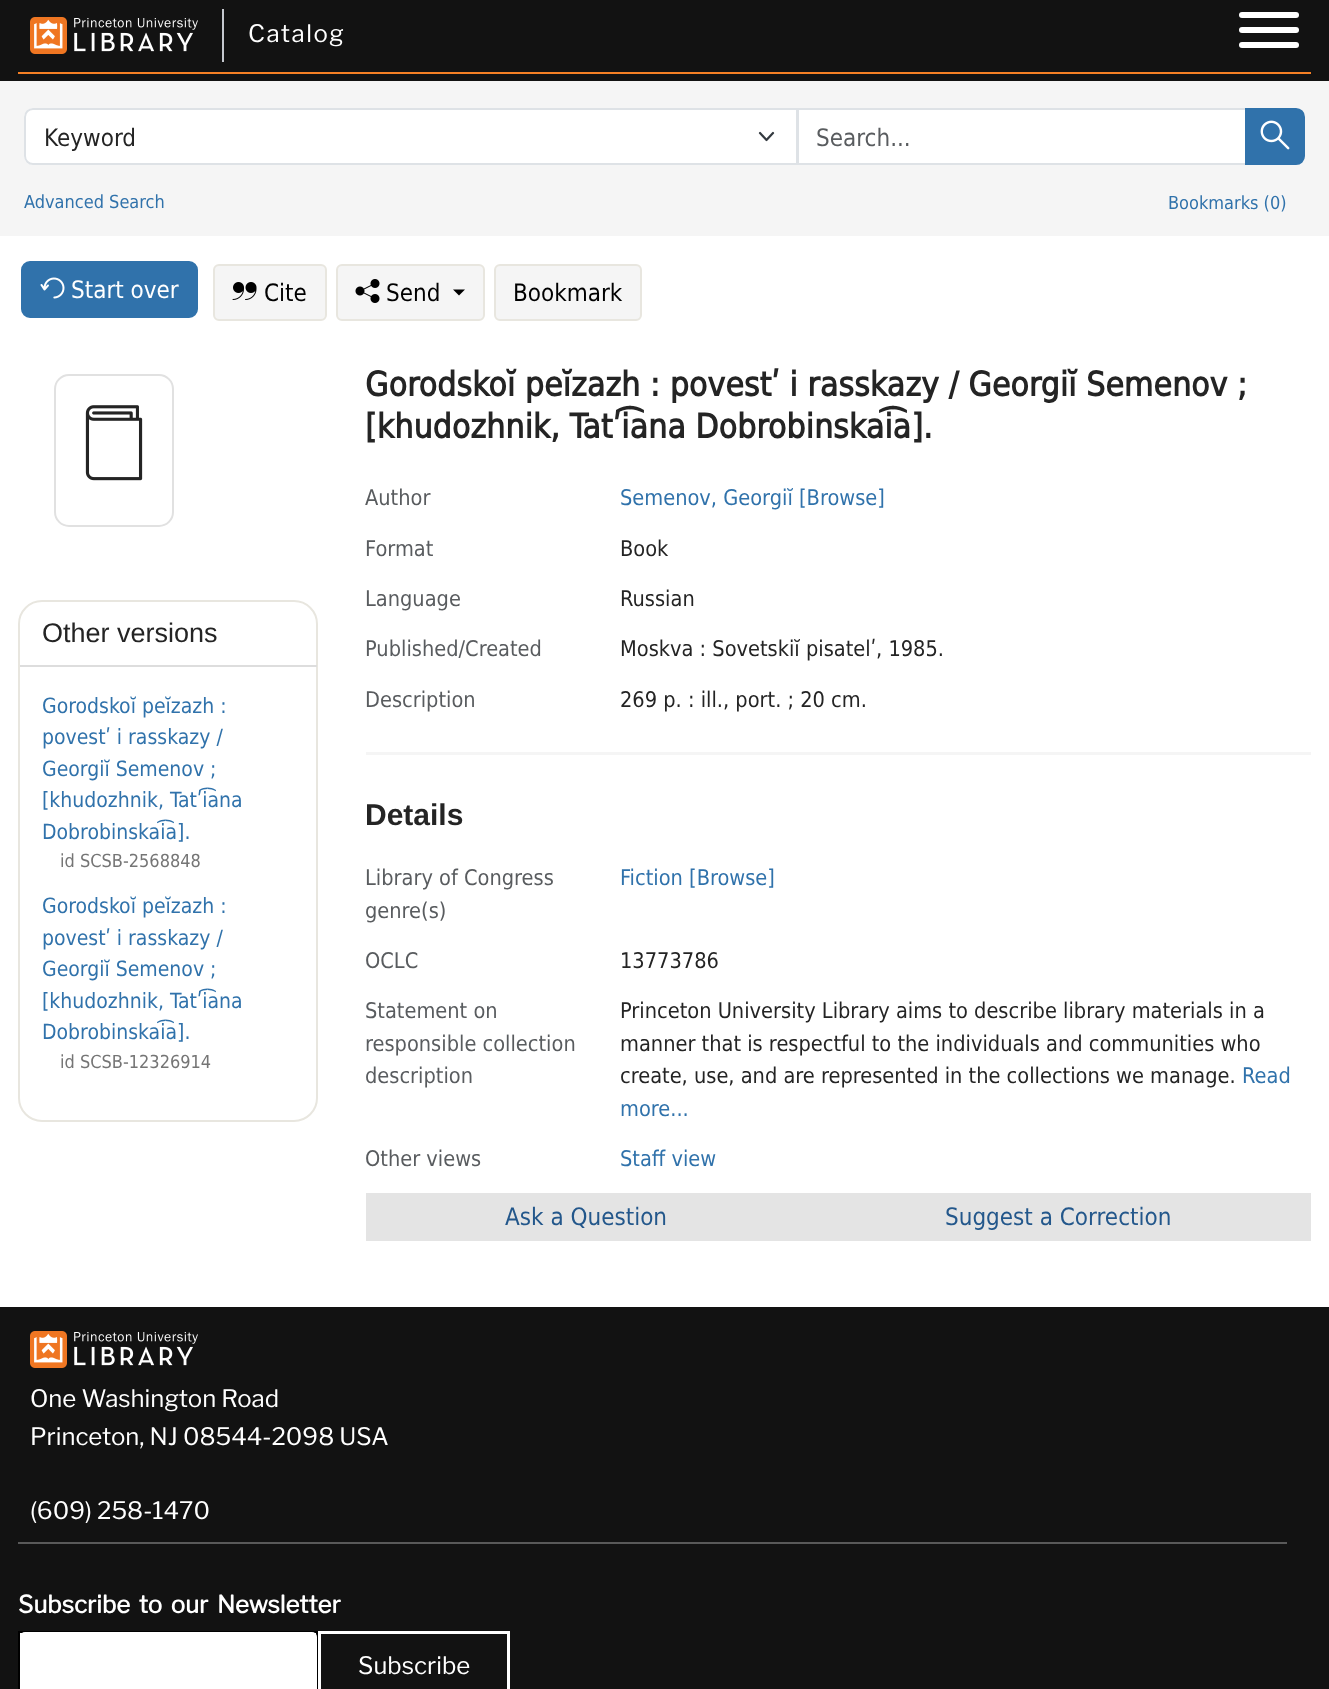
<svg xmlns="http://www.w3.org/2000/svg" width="1329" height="1689">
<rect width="100%" height="100%" fill="#f5f5f5"/>
<rect width="1329" height="81" fill="#121212"/>
<rect x="18" y="72" width="1293" height="2" fill="#f58025"/>
<image x="30" y="17" width="168" height="37" href="media/1.png"/>
<rect x="222" y="9" width="2" height="53" fill="#c5c8ce"/>
<text x="248" y="42" style="font-family:Libre Franklin;font-size:24px;letter-spacing:1.5px;fill:#fff">Catalog</text>
<rect x="1239" y="27" width="60" height="6" rx="3" fill="#fff"/>
<rect x="1239" y="12" width="60" height="6" rx="3" fill="#fff"/>
<rect x="1239" y="42" width="60" height="6" rx="3" fill="#fff"/>
<rect x="798" y="109" width="448" height="55" fill="#fff" stroke="#dee2e6" stroke-width="2"/>
<path d="M33 108h765v57h-765c-5 0-9-4-9-9v-39c0-5 4-9 9-9z" fill="#fff"/>
<path d="M760 133l6.5 7l6.5-7" fill="none" stroke="#343a40" stroke-width="2.2" stroke-linecap="round" stroke-linejoin="round"/>
<path d="M33 109h764v55h-764c-4.5 0-8-3.5-8-8v-39c0-4.5 3.5-8 8-8z" fill="none" stroke="#dee2e6" stroke-width="2"/>
<text x="44" y="146" style="font-family:DejaVu Sans;font-size:24px;fill:#242424">Keyword</text>
<text x="816" y="146" style="font-family:DejaVu Sans;font-size:24px;fill:#595c5f">Search...</text>
<path d="M1246 109h50c4.5 0 8 3.5 8 8v39c0 4.5-3.5 8-8 8h-50z" fill="#3072ab" stroke="#3072ab" stroke-width="2"/>
<image x="1260" y="120" width="30" height="30" href="media/2.png"/>
<text x="24" y="208" style="font-family:DejaVu Sans;font-size:18px;fill:#3072ab">Advanced Search</text>
<text x="1168" y="209" style="font-family:DejaVu Sans;font-size:18px;fill:#3072ab">Bookmarks (0)</text>
<rect y="236" width="1329" height="1071" fill="#fff"/>
<rect x="22" y="262" width="175" height="55" rx="8" fill="#3072ab" stroke="#3072ab" stroke-width="2"/>
<image x="40" y="277" width="25" height="22" href="media/3.png"/>
<text x="71" y="298" style="font-family:DejaVu Sans;font-size:24px;fill:#fff">Start over</text>
<rect x="214" y="265" width="112" height="55" rx="5" fill="#f5f5f5" stroke="#e8e6df" stroke-width="2"/>
<image x="232" y="282" width="25" height="18" href="media/4.png"/>
<text x="264" y="301" style="font-family:DejaVu Sans;font-size:24px;fill:#000">Cite</text>
<rect x="337" y="265" width="147" height="55" rx="5" fill="#f5f5f5" stroke="#e8e6df" stroke-width="2"/>
<image x="355" y="279" width="25" height="24" href="media/5.png"/>
<text x="386" y="301" style="font-family:DejaVu Sans;font-size:24px;fill:#000">Send</text>
<path d="M453 289.5h12l-6 6z" fill="#000"/>
<rect x="495" y="265" width="146" height="55" rx="5" fill="#f5f5f5" stroke="#e8e6df" stroke-width="2"/>
<text x="513" y="301" style="font-family:DejaVu Sans;font-size:24px;fill:#000">Bookmark</text>
<rect x="55" y="375" width="118" height="151" rx="14" fill="none" stroke="#e1e1e1" stroke-width="2"/>
<image x="85" y="405" width="58" height="76" href="media/6.png"/>
<text x="365" y="396" style="font-family:DejaVu Sans;font-size:33.6px;font-weight:bold;fill:#242424">Gorodskoĭ peĭzazh : povestʹ i rasskazy / Georgiĭ Semenov ;</text>
<text x="365" y="438" style="font-family:DejaVu Sans;font-size:33.6px;font-weight:bold;fill:#242424">[khudozhnik, Tatʹi︠a︡na Dobrobinskai︠a︡].</text>
<rect x="366" y="752" width="945" height="3" fill="#f5f5f5"/>
<text x="365" y="505" style="font-family:DejaVu Sans;font-size:21.6px;fill:#595c5f">Author</text>
<text x="620" y="505" style="font-family:DejaVu Sans;font-size:21.6px;fill:#3072ab">Semenov, Georgiĭ [Browse]</text>
<text x="365" y="556" style="font-family:DejaVu Sans;font-size:21.6px;fill:#595c5f">Format</text>
<text x="620" y="556" style="font-family:DejaVu Sans;font-size:21.6px;fill:#242424">Book</text>
<text x="365" y="606" style="font-family:DejaVu Sans;font-size:21.6px;fill:#595c5f">Language</text>
<text x="620" y="606" style="font-family:DejaVu Sans;font-size:21.6px;fill:#242424">Russian</text>
<text x="365" y="656" style="font-family:DejaVu Sans;font-size:21.6px;fill:#595c5f">Published/Created</text>
<text x="620" y="656" style="font-family:DejaVu Sans;font-size:21.6px;fill:#242424">Moskva : Sovetskiĭ pisatelʹ, 1985.</text>
<text x="365" y="707" style="font-family:DejaVu Sans;font-size:21.6px;fill:#595c5f">Description</text>
<text x="620" y="707" style="font-family:DejaVu Sans;font-size:21.6px;fill:#242424">269 p. : ill., port. ; 20 cm.</text>
<text x="365" y="825" style="font-family:Liberation Sans;font-size:30px;font-weight:bold;fill:#242424">Details</text>
<text x="365" y="885" style="font-family:DejaVu Sans;font-size:21.6px;fill:#595c5f">Library of Congress</text>
<text x="365" y="918" style="font-family:DejaVu Sans;font-size:21.6px;fill:#595c5f">genre(s)</text>
<text x="620" y="885" style="font-family:DejaVu Sans;font-size:21.6px;fill:#3072ab">Fiction [Browse]</text>
<text x="365" y="968" style="font-family:DejaVu Sans;font-size:21.6px;fill:#595c5f">OCLC</text>
<text x="620" y="968" style="font-family:DejaVu Sans;font-size:21.6px;fill:#242424">13773786</text>
<text x="365" y="1018" style="font-family:DejaVu Sans;font-size:21.6px;fill:#595c5f">Statement on</text>
<text x="365" y="1051" style="font-family:DejaVu Sans;font-size:21.6px;fill:#595c5f">responsible collection</text>
<text x="365" y="1083" style="font-family:DejaVu Sans;font-size:21.6px;fill:#595c5f">description</text>
<text x="620" y="1018" style="font-family:DejaVu Sans;font-size:21.6px;fill:#242424">Princeton University Library aims to describe library materials in a</text>
<text x="620" y="1051" style="font-family:DejaVu Sans;font-size:21.6px;fill:#242424">manner that is respectful to the individuals and communities who</text>
<text x="620" y="1083" style="font-family:DejaVu Sans;font-size:21.6px;fill:#242424">create, use, and are represented in the collections we manage.</text>
<text x="1242" y="1083" style="font-family:DejaVu Sans;font-size:21.6px;fill:#3072ab">Read</text>
<text x="620" y="1116" style="font-family:DejaVu Sans;font-size:21.6px;fill:#3072ab">more...</text>
<text x="365" y="1166" style="font-family:DejaVu Sans;font-size:21.6px;fill:#595c5f">Other views</text>
<text x="620" y="1166" style="font-family:DejaVu Sans;font-size:21.6px;fill:#3072ab">Staff view</text>
<rect x="366" y="1193" width="945" height="48" fill="#e4e4e4"/>
<text x="505" y="1225" style="font-family:DejaVu Sans;font-size:24px;fill:#23578b">Ask a Question</text>
<text x="945" y="1225" style="font-family:DejaVu Sans;font-size:24px;fill:#23578b">Suggest a Correction</text>
<rect x="19" y="601" width="298" height="520" rx="23" fill="none" stroke="#e8e6df" stroke-width="2"/>
<rect x="20" y="665" width="297" height="2" fill="#ddd"/>
<text x="42" y="642" style="font-family:Liberation Sans;font-size:27px;fill:#242424">Other versions</text>
<text x="42" y="713" style="font-family:DejaVu Sans;font-size:21px;fill:#3072ab">Gorodskoĭ peĭzazh :</text>
<text x="42" y="744" style="font-family:DejaVu Sans;font-size:21px;fill:#3072ab">povestʹ i rasskazy /</text>
<text x="42" y="776" style="font-family:DejaVu Sans;font-size:21px;fill:#3072ab">Georgiĭ Semenov ;</text>
<text x="42" y="807" style="font-family:DejaVu Sans;font-size:21px;fill:#3072ab">[khudozhnik, Tatʹi︠a︡na</text>
<text x="42" y="839" style="font-family:DejaVu Sans;font-size:21px;fill:#3072ab">Dobrobinskai︠a︡].</text>
<text x="60" y="867" style="font-family:DejaVu Sans;font-size:18px;fill:#757575">id SCSB-2568848</text>
<text x="42" y="913" style="font-family:DejaVu Sans;font-size:21px;fill:#3072ab">Gorodskoĭ peĭzazh :</text>
<text x="42" y="945" style="font-family:DejaVu Sans;font-size:21px;fill:#3072ab">povestʹ i rasskazy /</text>
<text x="42" y="976" style="font-family:DejaVu Sans;font-size:21px;fill:#3072ab">Georgiĭ Semenov ;</text>
<text x="42" y="1008" style="font-family:DejaVu Sans;font-size:21px;fill:#3072ab">[khudozhnik, Tatʹi︠a︡na</text>
<text x="42" y="1039" style="font-family:DejaVu Sans;font-size:21px;fill:#3072ab">Dobrobinskai︠a︡].</text>
<text x="60" y="1068" style="font-family:DejaVu Sans;font-size:18px;fill:#757575">id SCSB-12326914</text>
<rect y="1307" width="1329" height="382" fill="#121212"/>
<rect x="18" y="1542" width="1269" height="2" fill="#595959"/>
<image x="30" y="1331" width="168" height="37" href="media/1.png"/>
<text x="30" y="1407" style="font-family:Libre Franklin;font-size:24px;fill:#fff">One Washington Road</text>
<text x="30" y="1445" style="font-family:Libre Franklin;font-size:24px;fill:#fff">Princeton, NJ 08544-2098 USA</text>
<text x="30" y="1519" style="font-family:Libre Franklin;font-size:24px;fill:#fff">(609) 258-1470</text>
<text x="18" y="1613" word-spacing="3.5" style="font-family:Libre Franklin;font-size:24px;font-weight:bold;fill:#fff">Subscribe to our Newsletter</text>
<rect x="20" y="1633" width="296" height="4" fill="#fff"/>
<rect x="19" y="1632" width="298" height="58" fill="none" stroke="#000" stroke-width="2"/>
<rect x="20" y="1632" width="297" height="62" rx="5" fill="#fff"/>
<rect x="319.5" y="1632.5" width="189" height="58" fill="none" stroke="#fff" stroke-width="3"/>
<text x="358" y="1674" style="font-family:Libre Franklin;font-size:24px;fill:#fff">Subscribe</text>
</svg>
